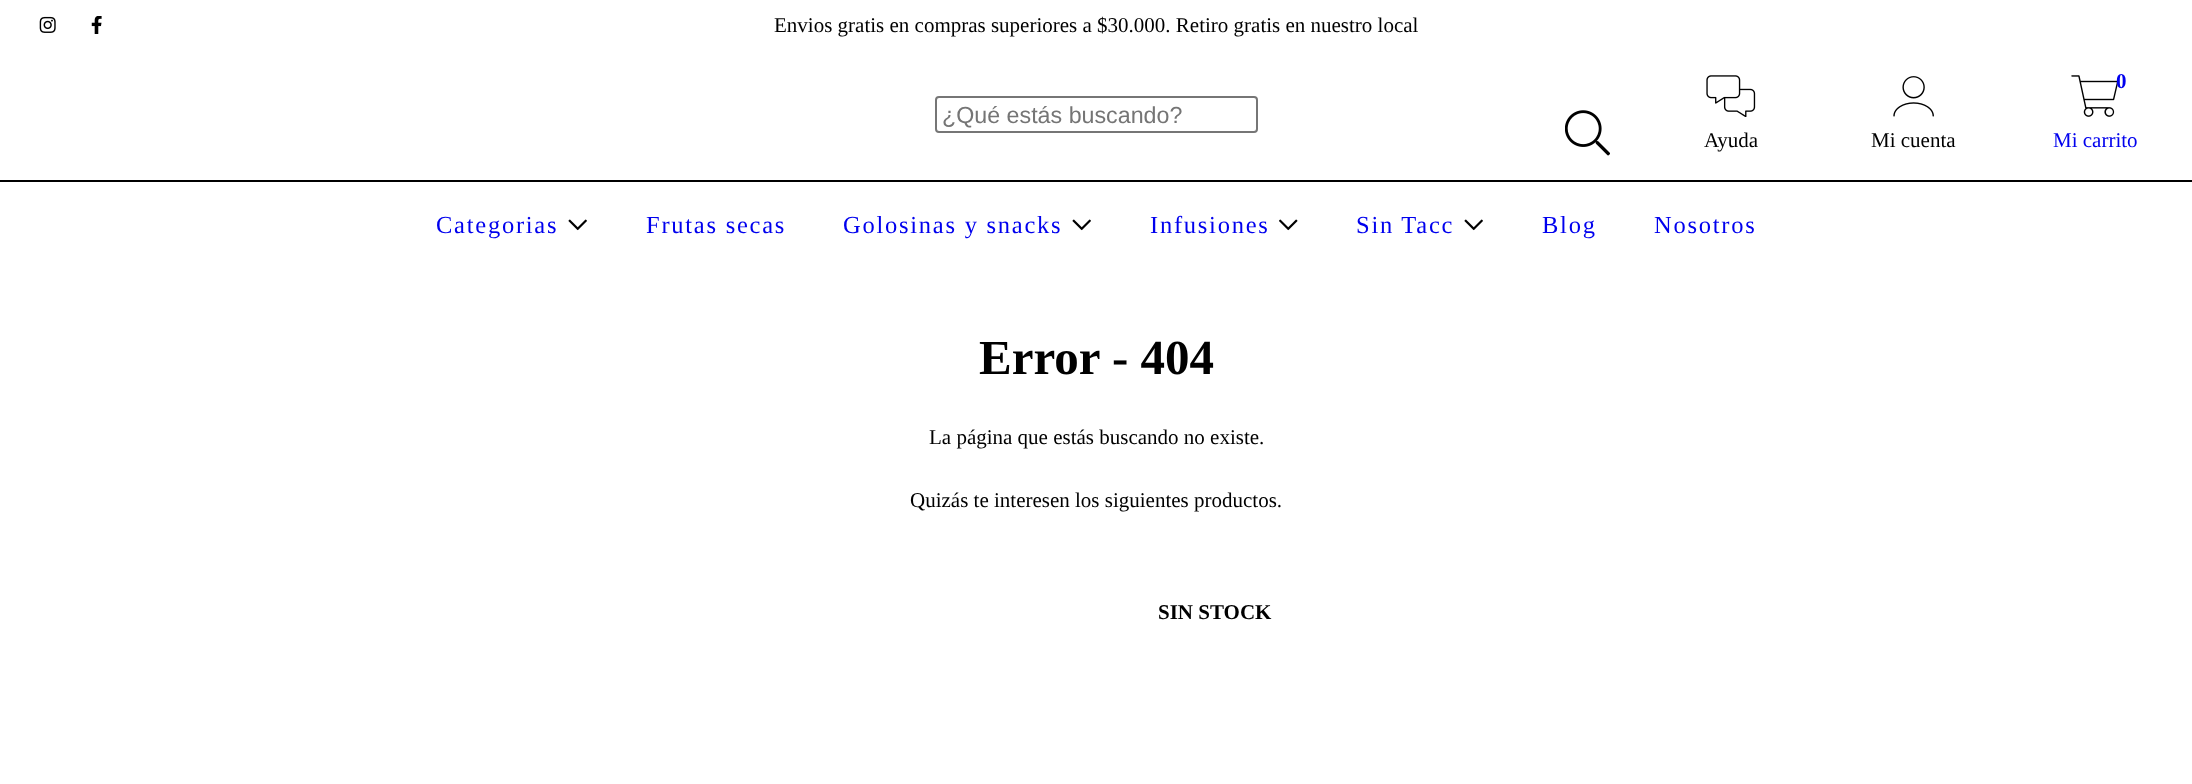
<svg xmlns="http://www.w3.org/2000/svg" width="2192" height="784">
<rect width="100%" height="100%" fill="#fff"/>
<image x="39" y="16" width="17" height="17" href="media/1.png"/>
<image x="91" y="16" width="11" height="18" href="media/2.png"/>
<text x="774" y="32" style="font-family:Liberation Serif;font-size:21px;fill:#000">Envios gratis en compras superiores a $30.000. Retiro gratis en nuestro local</text>
<rect x="936" y="97" width="321" height="35" rx="3" fill="none" stroke="#767676" stroke-width="2"/>
<text x="942" y="123" style="font-family:Liberation Sans;font-size:23.25px;fill:#757575">¿Qué estás buscando?</text>
<image x="1565" y="110" width="45" height="46" href="media/3.png"/>
<image x="1706" y="75" width="50" height="42" href="media/4.png"/>
<text x="1704" y="147" style="font-family:Liberation Serif;font-size:21px;fill:#000">Ayuda</text>
<image x="1893" y="76" width="41" height="41" href="media/5.png"/>
<text x="1871" y="147" style="font-family:Liberation Serif;font-size:21px;fill:#000">Mi cuenta</text>
<image x="2071" y="75" width="48" height="42" href="media/6.png"/>
<text x="2116" y="88" style="font-family:Liberation Serif;font-size:21px;font-weight:bold;fill:#00e">0</text>
<text x="2053" y="147" style="font-family:Liberation Serif;font-size:21px;fill:#00e">Mi carrito</text>
<rect y="180" width="2192" height="2" fill="#000"/>
<text x="436" y="233" style="font-family:Liberation Serif;font-size:24.5px;letter-spacing:1.75px;fill:#00e">Categorias</text>
<image x="568" y="219" width="19" height="12" href="media/7.png"/>
<text x="646" y="233" style="font-family:Liberation Serif;font-size:24.5px;letter-spacing:1.75px;fill:#00e">Frutas secas</text>
<text x="843" y="233" style="font-family:Liberation Serif;font-size:24.5px;letter-spacing:1.75px;fill:#00e">Golosinas y snacks</text>
<image x="1072" y="219" width="19" height="12" href="media/7.png"/>
<text x="1150" y="233" style="font-family:Liberation Serif;font-size:24.5px;letter-spacing:1.75px;fill:#00e">Infusiones</text>
<image x="1279" y="219" width="19" height="12" href="media/8.png"/>
<text x="1356" y="233" style="font-family:Liberation Serif;font-size:24.5px;letter-spacing:1.75px;fill:#00e">Sin Tacc</text>
<image x="1464" y="219" width="19" height="12" href="media/7.png"/>
<text x="1542" y="233" style="font-family:Liberation Serif;font-size:24.5px;letter-spacing:1.75px;fill:#00e">Blog</text>
<text x="1654" y="233" style="font-family:Liberation Serif;font-size:24.5px;letter-spacing:1.75px;fill:#00e">Nosotros</text>
<text x="979" y="374" style="font-family:Liberation Serif;font-size:49px;font-weight:bold;fill:#000">Error - 404</text>
<text x="929" y="444" style="font-family:Liberation Serif;font-size:21px;fill:#000">La página que estás buscando no existe.</text>
<text x="910" y="507" style="font-family:Liberation Serif;font-size:21px;fill:#000">Quizás te interesen los siguientes productos.</text>
<text x="1158" y="619" style="font-family:Liberation Serif;font-size:21px;font-weight:bold;fill:#000">SIN STOCK</text>
</svg>
